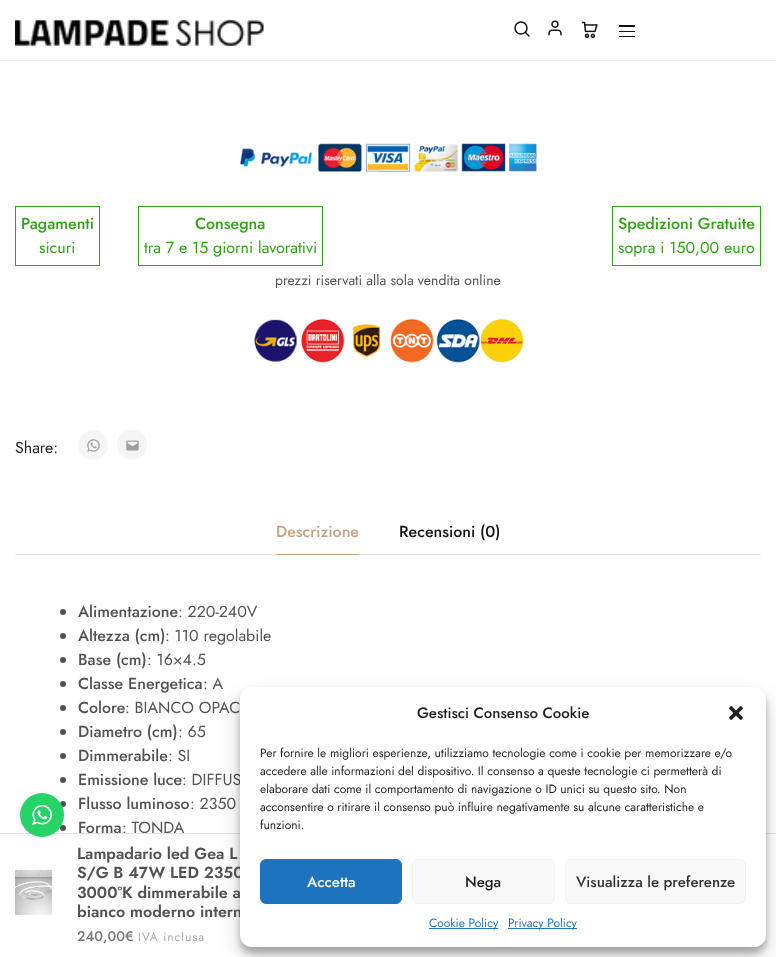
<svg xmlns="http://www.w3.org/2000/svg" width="776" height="957">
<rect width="100%" height="100%" fill="#fff"/>
<rect y="1" width="776" height="60" fill="#f0f0f0" filter="blur(0.5px)"/>
<rect y="1" width="776" height="59" fill="#fff"/>
<image x="15" y="19" width="249" height="28" href="media/1.png"/>
<circle cx="521" cy="28" r="6" fill="none" stroke="#111" stroke-width="1.5"/>
<path d="M529 36l-3.5-3.5" fill="none" stroke="#111" stroke-width="1.5" stroke-linecap="round" stroke-linejoin="round"/>
<image x="548" y="20" width="14" height="16" href="media/2.png"/>
<image x="581" y="21" width="17" height="18" href="media/3.png"/>
<rect x="619" y="25" width="16" height="2" fill="#111"/>
<rect x="619" y="31" width="16" height="1" fill="#111"/>
<rect x="619" y="36" width="16" height="1" fill="#111"/>
<image x="240" y="143" width="297" height="30" href="media/4.png"/>
<rect x="15.5" y="206.5" width="84" height="59" fill="none" stroke="#2fa314"/>
<text x="21" y="229" style="font-family:Jost;font-size:16px;font-weight:500;fill:#2fa314">Pagamenti</text>
<text x="39" y="253" style="font-family:Jost;font-size:16px;fill:#2fa314">sicuri</text>
<rect x="138.5" y="206.5" width="184" height="59" fill="none" stroke="#2fa314"/>
<text x="195" y="229" style="font-family:Jost;font-size:16px;font-weight:500;fill:#2fa314">Consegna</text>
<text x="144" y="253" style="font-family:Jost;font-size:16px;fill:#2fa314">tra 7 e 15 giorni lavorativi</text>
<rect x="612.5" y="206.5" width="148" height="59" fill="none" stroke="#2fa314"/>
<text x="618" y="229" style="font-family:Jost;font-size:16px;font-weight:500;fill:#2fa314">Spedizioni Gratuite</text>
<text x="618" y="253" style="font-family:Jost;font-size:16px;fill:#2fa314">sopra i 150,00 euro</text>
<text x="275" y="285" style="font-family:Jost;font-size:14px;fill:#525252">prezzi riservati alla sola vendita online</text>
<image x="254" y="319" width="270" height="44" href="media/5.png"/>
<text x="15" y="453" style="font-family:Jost;font-size:16px;fill:#1f1f1f">Share:</text>
<circle cx="93" cy="445" r="15" fill="#f5f5f5"/>
<image x="87" y="439" width="13" height="13" href="media/6.png"/>
<circle cx="132" cy="445" r="15" fill="#f5f5f5"/>
<image x="126" y="440" width="13" height="11" href="media/7.png"/>
<rect x="15" y="554" width="746" height="1" fill="#e2e2e2"/>
<text x="276" y="537" style="font-family:Jost;font-size:16px;font-weight:500;fill:#c4a181">Descrizione</text>
<rect x="276" y="554" width="83" height="1" fill="#c4a181"/>
<text x="399" y="537" style="font-family:Jost;font-size:16px;font-weight:500;fill:#111">Recensioni (0)</text>
<circle cx="63" cy="612" r="3" fill="#525252"/>
<text x="78" y="617" style="font-family:Jost;font-size:16px;font-weight:500;fill:#525252">Alimentazione</text>
<text x="178" y="617" style="font-family:Jost;font-size:16px;fill:#525252">: 220-240V</text>
<circle cx="63" cy="636" r="3" fill="#525252"/>
<text x="78" y="641" style="font-family:Jost;font-size:16px;font-weight:500;fill:#525252">Altezza (cm)</text>
<text x="165" y="641" style="font-family:Jost;font-size:16px;fill:#525252">: 110 regolabile</text>
<circle cx="63" cy="660" r="3" fill="#525252"/>
<text x="78" y="665" style="font-family:Jost;font-size:16px;font-weight:500;fill:#525252">Base (cm)</text>
<text x="147" y="665" style="font-family:Jost;font-size:16px;fill:#525252">: 16×4.5</text>
<circle cx="63" cy="684" r="3" fill="#525252"/>
<text x="78" y="689" style="font-family:Jost;font-size:16px;font-weight:500;fill:#525252">Classe Energetica</text>
<text x="203" y="689" style="font-family:Jost;font-size:16px;fill:#525252">: A</text>
<circle cx="63" cy="708" r="3" fill="#525252"/>
<text x="78" y="713" style="font-family:Jost;font-size:16px;font-weight:500;fill:#525252">Colore</text>
<text x="125" y="713" style="font-family:Jost;font-size:16px;fill:#525252">: BIANCO OPAC</text>
<circle cx="63" cy="732" r="3" fill="#525252"/>
<text x="78" y="737" style="font-family:Jost;font-size:16px;font-weight:500;fill:#525252">Diametro (cm)</text>
<text x="178" y="737" style="font-family:Jost;font-size:16px;fill:#525252">: 65</text>
<circle cx="63" cy="756" r="3" fill="#525252"/>
<text x="78" y="761" style="font-family:Jost;font-size:16px;font-weight:500;fill:#525252">Dimmerabile</text>
<text x="168" y="761" style="font-family:Jost;font-size:16px;fill:#525252">: SI</text>
<circle cx="63" cy="780" r="3" fill="#525252"/>
<text x="78" y="785" style="font-family:Jost;font-size:16px;font-weight:500;fill:#525252">Emissione luce</text>
<text x="182" y="785" style="font-family:Jost;font-size:16px;fill:#525252">: DIFFUS</text>
<circle cx="63" cy="804" r="3" fill="#525252"/>
<text x="78" y="809" style="font-family:Jost;font-size:16px;font-weight:500;fill:#525252">Flusso luminoso</text>
<text x="190" y="809" style="font-family:Jost;font-size:16px;fill:#525252">: 2350</text>
<circle cx="63" cy="828" r="3" fill="#525252"/>
<text x="78" y="833" style="font-family:Jost;font-size:16px;font-weight:500;fill:#525252">Forma</text>
<text x="122" y="833" style="font-family:Jost;font-size:16px;fill:#525252">: TONDA</text>
<rect y="833" width="776" height="1" fill="#e2e2e2"/>
<circle cx="42" cy="815" r="22" fill="#25d366"/>
<image x="32" y="805" width="20" height="20" href="media/8.png"/>
<rect x="240" y="693" width="526" height="260" rx="12" fill="#0000003b" filter="blur(3px)"/>
<rect x="240" y="697" width="526" height="260" rx="12" fill="#00000030" filter="blur(10px)"/>
<text x="77" y="878" style="font-family:Jost;font-size:16px;font-weight:600;fill:#525252">S/G B 47W LED 2350</text>
<text x="77" y="898" style="font-family:Jost;font-size:16px;font-weight:600;fill:#525252">3000°K dimmerabile a</text>
<text x="77" y="917" style="font-family:Jost;font-size:16px;font-weight:600;fill:#525252">bianco moderno intern</text>
<rect x="240" y="687" width="526" height="260" rx="12" fill="#fff"/>
<text x="417" y="718" style="font-family:Jost;font-size:15px;font-weight:500;fill:#1f1f1f">Gestisci Consenso Cookie</text>
<image x="729" y="706" width="14" height="14" href="media/9.png"/>
<text x="260" y="757" style="font-family:Jost;font-size:12px;fill:#1f1f1f">Per fornire le migliori esperienze, utilizziamo tecnologie come i cookie per memorizzare e/o</text>
<text x="260" y="775" style="font-family:Jost;font-size:12px;fill:#1f1f1f">accedere alle informazioni del dispositivo. Il consenso a queste tecnologie ci permetterà di</text>
<text x="260" y="793" style="font-family:Jost;font-size:12px;fill:#1f1f1f">elaborare dati come il comportamento di navigazione o ID unici su questo sito. Non</text>
<text x="260" y="811" style="font-family:Jost;font-size:12px;fill:#1f1f1f">acconsentire o ritirare il consenso può influire negativamente su alcune caratteristiche e</text>
<text x="260" y="829" style="font-family:Jost;font-size:12px;fill:#1f1f1f">funzioni.</text>
<rect x="260.5" y="859.5" width="141" height="44" rx="5.5" fill="#1e73be" stroke="#1e73be"/>
<text x="307" y="887" style="font-family:Jost;font-size:15px;font-weight:500;fill:#fff">Accetta</text>
<rect x="412.5" y="859.5" width="142" height="44" rx="5.5" fill="#f9f9f9" stroke="#f2f2f2"/>
<text x="465" y="887" style="font-family:Jost;font-size:15px;font-weight:500;fill:#1f1f1f">Nega</text>
<rect x="565.5" y="859.5" width="180" height="44" rx="5.5" fill="#f9f9f9" stroke="#f2f2f2"/>
<text x="576" y="887" style="font-family:Jost;font-size:15px;font-weight:500;fill:#333">Visualizza le preferenze</text>
<rect x="429" y="928" width="69" height="1" fill="#1e73be"/>
<text x="429" y="927" style="font-family:Jost;font-size:12px;fill:#1e73be">Cookie Policy</text>
<rect x="508" y="928" width="69" height="1" fill="#1e73be"/>
<text x="508" y="927" style="font-family:Jost;font-size:12px;fill:#1e73be">Privacy Policy</text>
<image x="15" y="869" width="37" height="46" href="media/10.png"/>
<text x="77" y="859" style="font-family:Jost;font-size:16px;font-weight:600;fill:#525252">Lampadario led Gea L</text>
<text x="77" y="941" style="font-family:Jost;font-size:14px;font-weight:500;fill:#767676">240,00€</text>
<text x="138" y="941" style="font-family:Jost;font-size:12px;letter-spacing:1px;fill:#acaaa6">IVA inclusa</text>
</svg>
